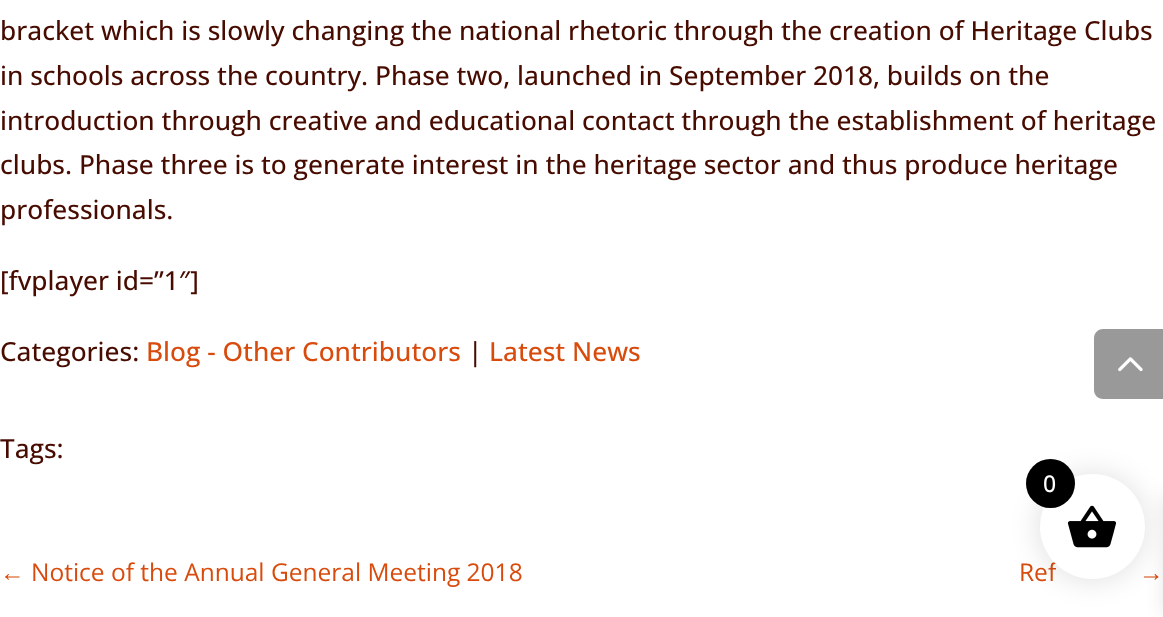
<svg xmlns="http://www.w3.org/2000/svg" width="1163" height="617">
<rect width="100%" height="100%" fill="#fff"/>
<text x="0" y="40" style="font-family:Open Sans;font-size:26.25px;font-weight:500;fill:#470b00">bracket which is slowly changing the national rhetoric through the creation of Heritage Clubs</text>
<text x="0" y="85" style="font-family:Open Sans;font-size:26.25px;font-weight:500;fill:#470b00">in schools across the country. Phase two, launched in September 2018, builds on the</text>
<text x="0" y="130" style="font-family:Open Sans;font-size:26.25px;font-weight:500;fill:#470b00">introduction through creative and educational contact through the establishment of heritage</text>
<text x="0" y="174" style="font-family:Open Sans;font-size:26.25px;font-weight:500;fill:#470b00">clubs. Phase three is to generate interest in the heritage sector and thus produce heritage</text>
<text x="0" y="219" style="font-family:Open Sans;font-size:26.25px;font-weight:500;fill:#470b00">professionals.</text>
<text x="0" y="290" style="font-family:Open Sans;font-size:26.25px;font-weight:500;fill:#470b00">[fvplayer id=”1″]</text>
<text x="0" y="361" style="font-family:Open Sans;font-size:26.25px;font-weight:500;fill:#470b00">Categories:</text>
<text x="146" y="361" style="font-family:Open Sans;font-size:26.25px;font-weight:500;fill:#d84b0d">Blog - Other Contributors</text>
<text x="468" y="361" style="font-family:Open Sans;font-size:26.25px;font-weight:500;fill:#470b00">|</text>
<text x="489" y="361" style="font-family:Open Sans;font-size:26.25px;font-weight:500;fill:#d84b0d">Latest News</text>
<text x="0" y="458" style="font-family:Open Sans;font-size:26.25px;font-weight:500;fill:#470b00">Tags:</text>
<text x="0" y="581" style="font-family:Liberation Sans;font-size:24.5px;fill:#d84b0d">←</text>
<text x="31" y="581" style="font-family:Open Sans;font-size:24.5px;fill:#d84b0d">Notice of the Annual General Meeting 2018</text>
<text x="1019" y="581" style="font-family:Open Sans;font-size:24.5px;fill:#d84b0d">Ref</text>
<text x="1139" y="581" style="font-family:Liberation Sans;font-size:24.5px;fill:#d84b0d">→</text>
<path d="M1103 329h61v70h-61c-5 0-9-4-9-9v-52c0-5 4-9 9-9z" fill="#999"/>
<image x="1118" y="357" width="25" height="15" href="media/1.png"/>
<rect x="1036" y="471" width="112" height="112" rx="56" fill="#0000001a" filter="blur(13px)"/>
<rect x="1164" y="495" width="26" height="121" fill="#0000001a" filter="blur(9px)"/>
<circle cx="1092.5" cy="526.5" r="52.5" fill="#fff"/>
<image x="1067" y="505" width="50" height="43" href="media/2.png"/>
<circle cx="1050.5" cy="483.5" r="24.5" fill="#000"/>
<text x="1043" y="492" style="font-family:Open Sans;font-size:23px;font-weight:500;fill:#fff">0</text>
</svg>
